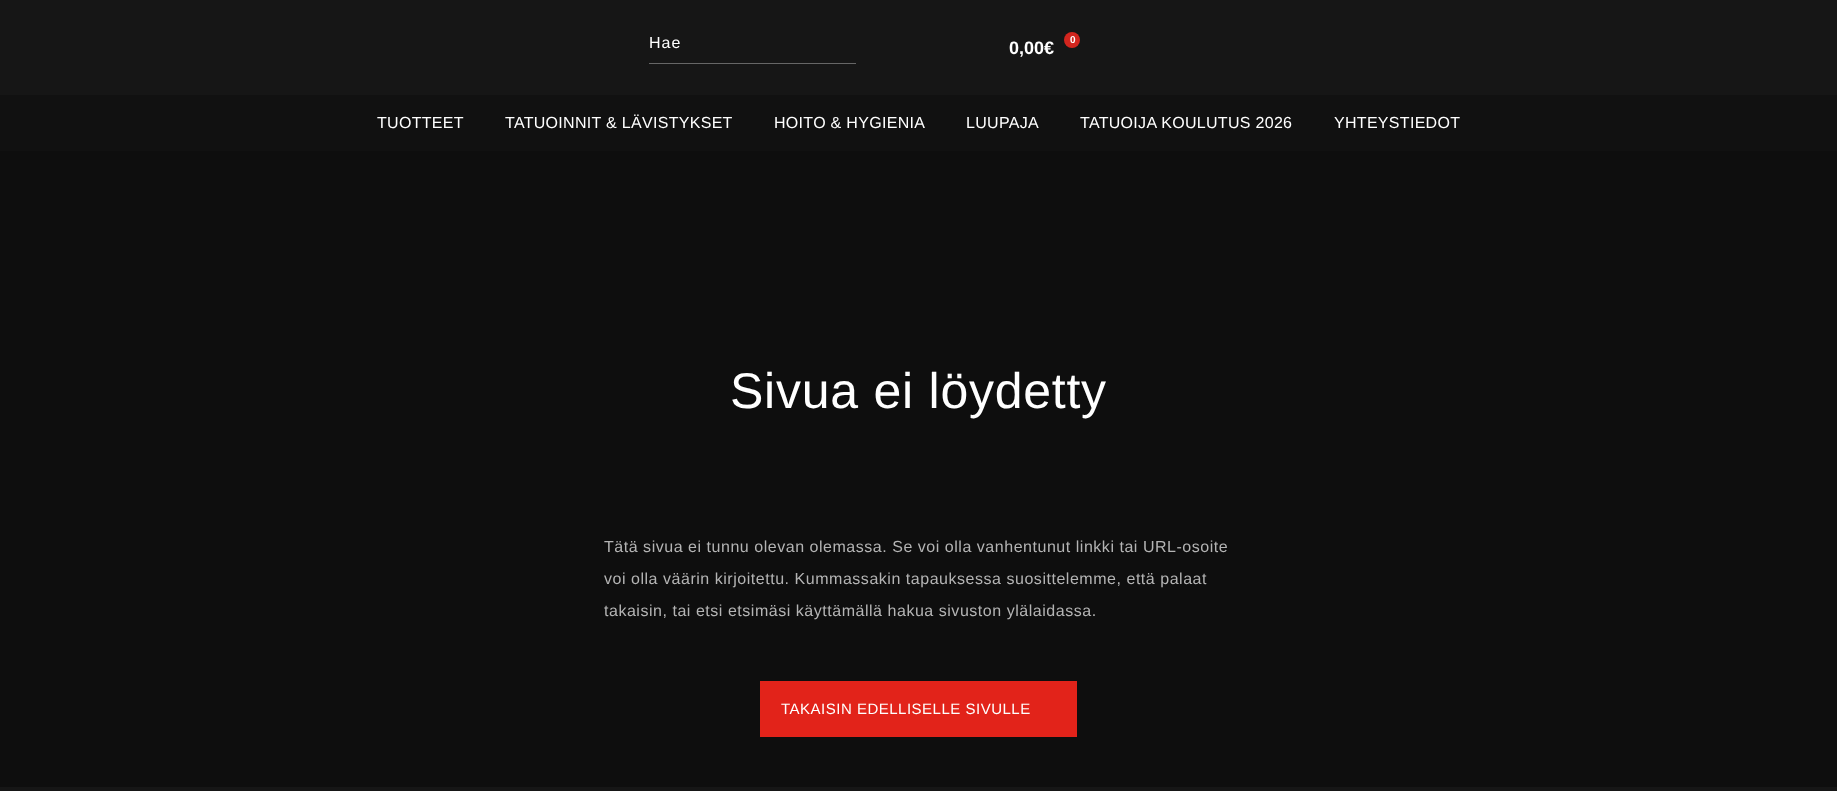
<svg xmlns="http://www.w3.org/2000/svg" width="1837" height="791">
<rect width="100%" height="100%" fill="#0e0e0e"/>
<rect width="1837" height="95" fill="#161616"/>
<rect x="649" y="63" width="207" height="1" fill="#666"/>
<text x="649" y="48" style="font-family:Liberation Sans;font-size:16px;letter-spacing:1px;fill:#fff">Hae</text>
<circle cx="1072" cy="40" r="8" fill="#d2251e"/>
<text x="1070" y="43" style="font-family:Liberation Sans;font-size:10px;font-weight:bold;fill:#fff">0</text>
<text x="1009" y="54" style="font-family:Liberation Sans;font-size:18px;font-weight:bold;fill:#fff">0,00€</text>
<rect y="95" width="1837" height="56" fill="#111"/>
<text x="377" y="128" style="font-family:Liberation Sans;font-size:16px;letter-spacing:0.3px;fill:#fff">TUOTTEET</text>
<text x="505" y="128" style="font-family:Liberation Sans;font-size:16px;letter-spacing:0.3px;fill:#fff">TATUOINNIT &amp; LÄVISTYKSET</text>
<text x="774" y="128" style="font-family:Liberation Sans;font-size:16px;letter-spacing:0.3px;fill:#fff">HOITO &amp; HYGIENIA</text>
<text x="966" y="128" style="font-family:Liberation Sans;font-size:16px;letter-spacing:0.3px;fill:#fff">LUUPAJA</text>
<text x="1080" y="128" style="font-family:Liberation Sans;font-size:16px;letter-spacing:0.3px;fill:#fff">TATUOIJA KOULUTUS 2026</text>
<text x="1334" y="128" style="font-family:Liberation Sans;font-size:16px;letter-spacing:0.3px;fill:#fff">YHTEYSTIEDOT</text>
<text x="730" y="408" style="font-family:Liberation Sans;font-size:50px;letter-spacing:0.75px;fill:#fff">Sivua ei löydetty</text>
<text x="604" y="552" style="font-family:Liberation Sans;font-size:16px;letter-spacing:0.53px;fill:#b4b4b4">Tätä sivua ei tunnu olevan olemassa. Se voi olla vanhentunut linkki tai URL-osoite</text>
<text x="604" y="584" style="font-family:Liberation Sans;font-size:16px;letter-spacing:0.53px;fill:#b4b4b4">voi olla väärin kirjoitettu. Kummassakin tapauksessa suosittelemme, että palaat</text>
<text x="604" y="616" style="font-family:Liberation Sans;font-size:16px;letter-spacing:0.53px;fill:#b4b4b4">takaisin, tai etsi etsimäsi käyttämällä hakua sivuston ylälaidassa.</text>
<rect x="760" y="681" width="317" height="56" fill="#e2231a"/>
<text x="781" y="714" style="font-family:Liberation Sans;font-size:15px;letter-spacing:0.5px;fill:#fff">TAKAISIN EDELLISELLE SIVULLE</text>
<rect y="787" width="1837" height="4" fill="#161616"/>
</svg>
